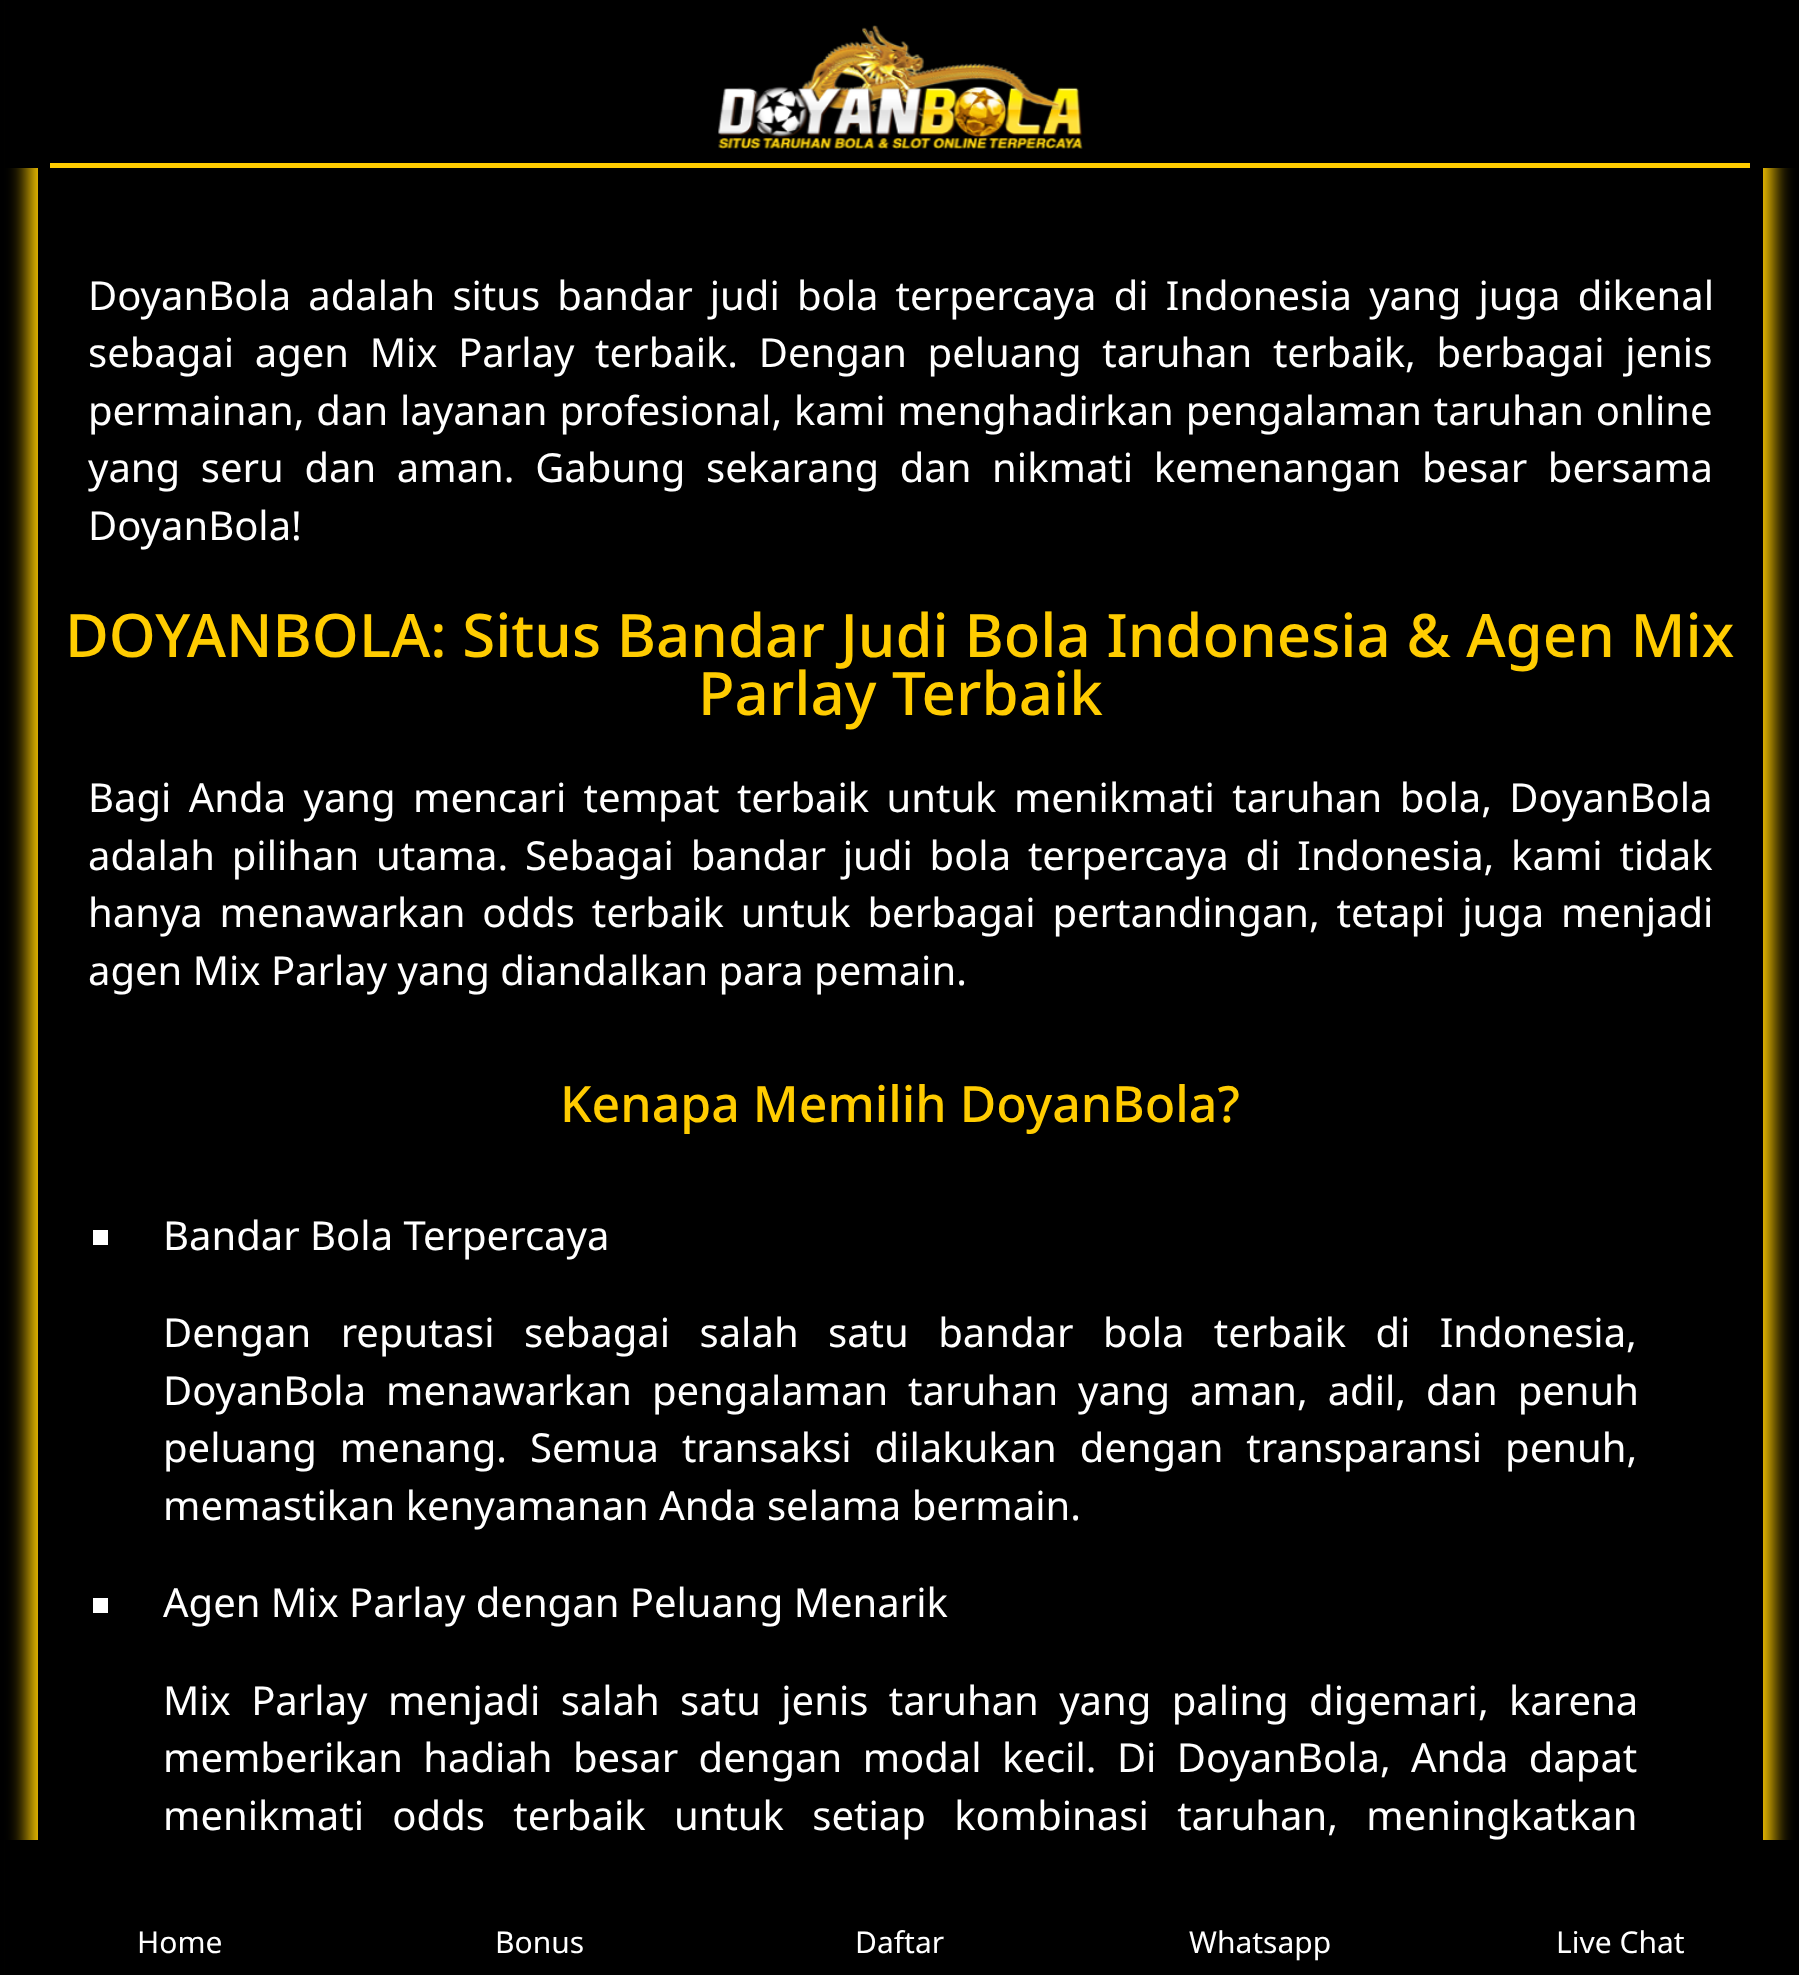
<svg xmlns="http://www.w3.org/2000/svg" width="1799" height="1975">
<defs>
<clipPath id="clip1"><path d="M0 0h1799v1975h-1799zm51-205h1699c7 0 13 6 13 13v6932c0 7-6 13-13 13h-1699c-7 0-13-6-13-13v-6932c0-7 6-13 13-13z" clip-rule="evenodd"/></clipPath>
</defs>
<rect width="100%" height="100%" fill="#000"/>
<g clip-path="url(#clip1)">
<rect x="28" y="-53" width="1745" height="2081" rx="23" fill="#fc0" filter="blur(10px)"/>
</g>
<rect x="5" width="1791" height="168" fill="#000"/>
<rect x="50" y="163" width="1700" height="5" fill="#fc0"/>
<image x="718" y="25" width="365" height="124" href="media/1.png"/>
<text x="88" y="310" word-spacing="6.75" style="font-family:Noto Sans;font-size:40px;fill:#fff">DoyanBola adalah situs bandar judi bola terpercaya di Indonesia yang juga dikenal</text>
<text x="88" y="367" word-spacing="10.25" style="font-family:Noto Sans;font-size:40px;fill:#fff">sebagai agen Mix Parlay terbaik. Dengan peluang taruhan terbaik, berbagai jenis</text>
<text x="88" y="425" word-spacing="1.5" style="font-family:Noto Sans;font-size:40px;fill:#fff">permainan, dan layanan profesional, kami menghadirkan pengalaman taruhan online</text>
<text x="88" y="482" word-spacing="10.25" style="font-family:Noto Sans;font-size:40px;fill:#fff">yang seru dan aman. Gabung sekarang dan nikmati kemenangan besar bersama</text>
<text x="88" y="540" style="font-family:Noto Sans;font-size:40px;fill:#fff">DoyanBola!</text>
<text x="65" y="657" style="font-family:Noto Sans;font-size:60px;font-weight:500;fill:#fc0">DOYANBOLA: Situs Bandar Judi Bola Indonesia &amp; Agen Mix</text>
<text x="698" y="715" style="font-family:Noto Sans;font-size:60px;font-weight:500;fill:#fc0">Parlay Terbaik</text>
<text x="88" y="812" word-spacing="7" style="font-family:Noto Sans;font-size:40px;fill:#fff">Bagi Anda yang mencari tempat terbaik untuk menikmati taruhan bola, DoyanBola</text>
<text x="88" y="870" word-spacing="6.4" style="font-family:Noto Sans;font-size:40px;fill:#fff">adalah pilihan utama. Sebagai bandar judi bola terpercaya di Indonesia, kami tidak</text>
<text x="88" y="927" word-spacing="6.4" style="font-family:Noto Sans;font-size:40px;fill:#fff">hanya menawarkan odds terbaik untuk berbagai pertandingan, tetapi juga menjadi</text>
<text x="88" y="985" style="font-family:Noto Sans;font-size:40px;fill:#fff">agen Mix Parlay yang diandalkan para pemain.</text>
<text x="560" y="1122" style="font-family:Noto Sans;font-size:50px;font-weight:500;fill:#fc0">Kenapa Memilih DoyanBola?</text>
<rect x="93" y="1230" width="15" height="15" fill="#fff"/>
<text x="163" y="1250" style="font-family:Noto Sans;font-size:40px;fill:#fff">Bandar Bola Terpercaya</text>
<text x="163" y="1347" word-spacing="19" style="font-family:Noto Sans;font-size:40px;fill:#fff">Dengan reputasi sebagai salah satu bandar bola terbaik di Indonesia,</text>
<text x="163" y="1405" word-spacing="9.5" style="font-family:Noto Sans;font-size:40px;fill:#fff">DoyanBola menawarkan pengalaman taruhan yang aman, adil, dan penuh</text>
<text x="163" y="1462" word-spacing="12.5" style="font-family:Noto Sans;font-size:40px;fill:#fff">peluang menang. Semua transaksi dilakukan dengan transparansi penuh,</text>
<text x="163" y="1520" style="font-family:Noto Sans;font-size:40px;fill:#fff">memastikan kenyamanan Anda selama bermain.</text>
<rect x="93" y="1598" width="15" height="15" fill="#fff"/>
<text x="163" y="1617" style="font-family:Noto Sans;font-size:40px;fill:#fff">Agen Mix Parlay dengan Peluang Menarik</text>
<text x="163" y="1715" word-spacing="10" style="font-family:Noto Sans;font-size:40px;fill:#fff">Mix Parlay menjadi salah satu jenis taruhan yang paling digemari, karena</text>
<text x="163" y="1772" word-spacing="10" style="font-family:Noto Sans;font-size:40px;fill:#fff">memberikan hadiah besar dengan modal kecil. Di DoyanBola, Anda dapat</text>
<text x="163" y="1830" word-spacing="18" style="font-family:Noto Sans;font-size:40px;fill:#fff">menikmati odds terbaik untuk setiap kombinasi taruhan, meningkatkan</text>
<rect x="5" y="1840" width="1791" height="135" fill="#000"/>
<text x="137" y="1953" style="font-family:Noto Sans;font-size:30px;fill:#fff">Home</text>
<text x="495" y="1953" style="font-family:Noto Sans;font-size:30px;fill:#fff">Bonus</text>
<text x="855" y="1953" style="font-family:Noto Sans;font-size:30px;fill:#fff">Daftar</text>
<text x="1189" y="1953" style="font-family:Noto Sans;font-size:30px;fill:#fff">Whatsapp</text>
<text x="1556" y="1953" style="font-family:Noto Sans;font-size:30px;fill:#fff">Live Chat</text>
</svg>
